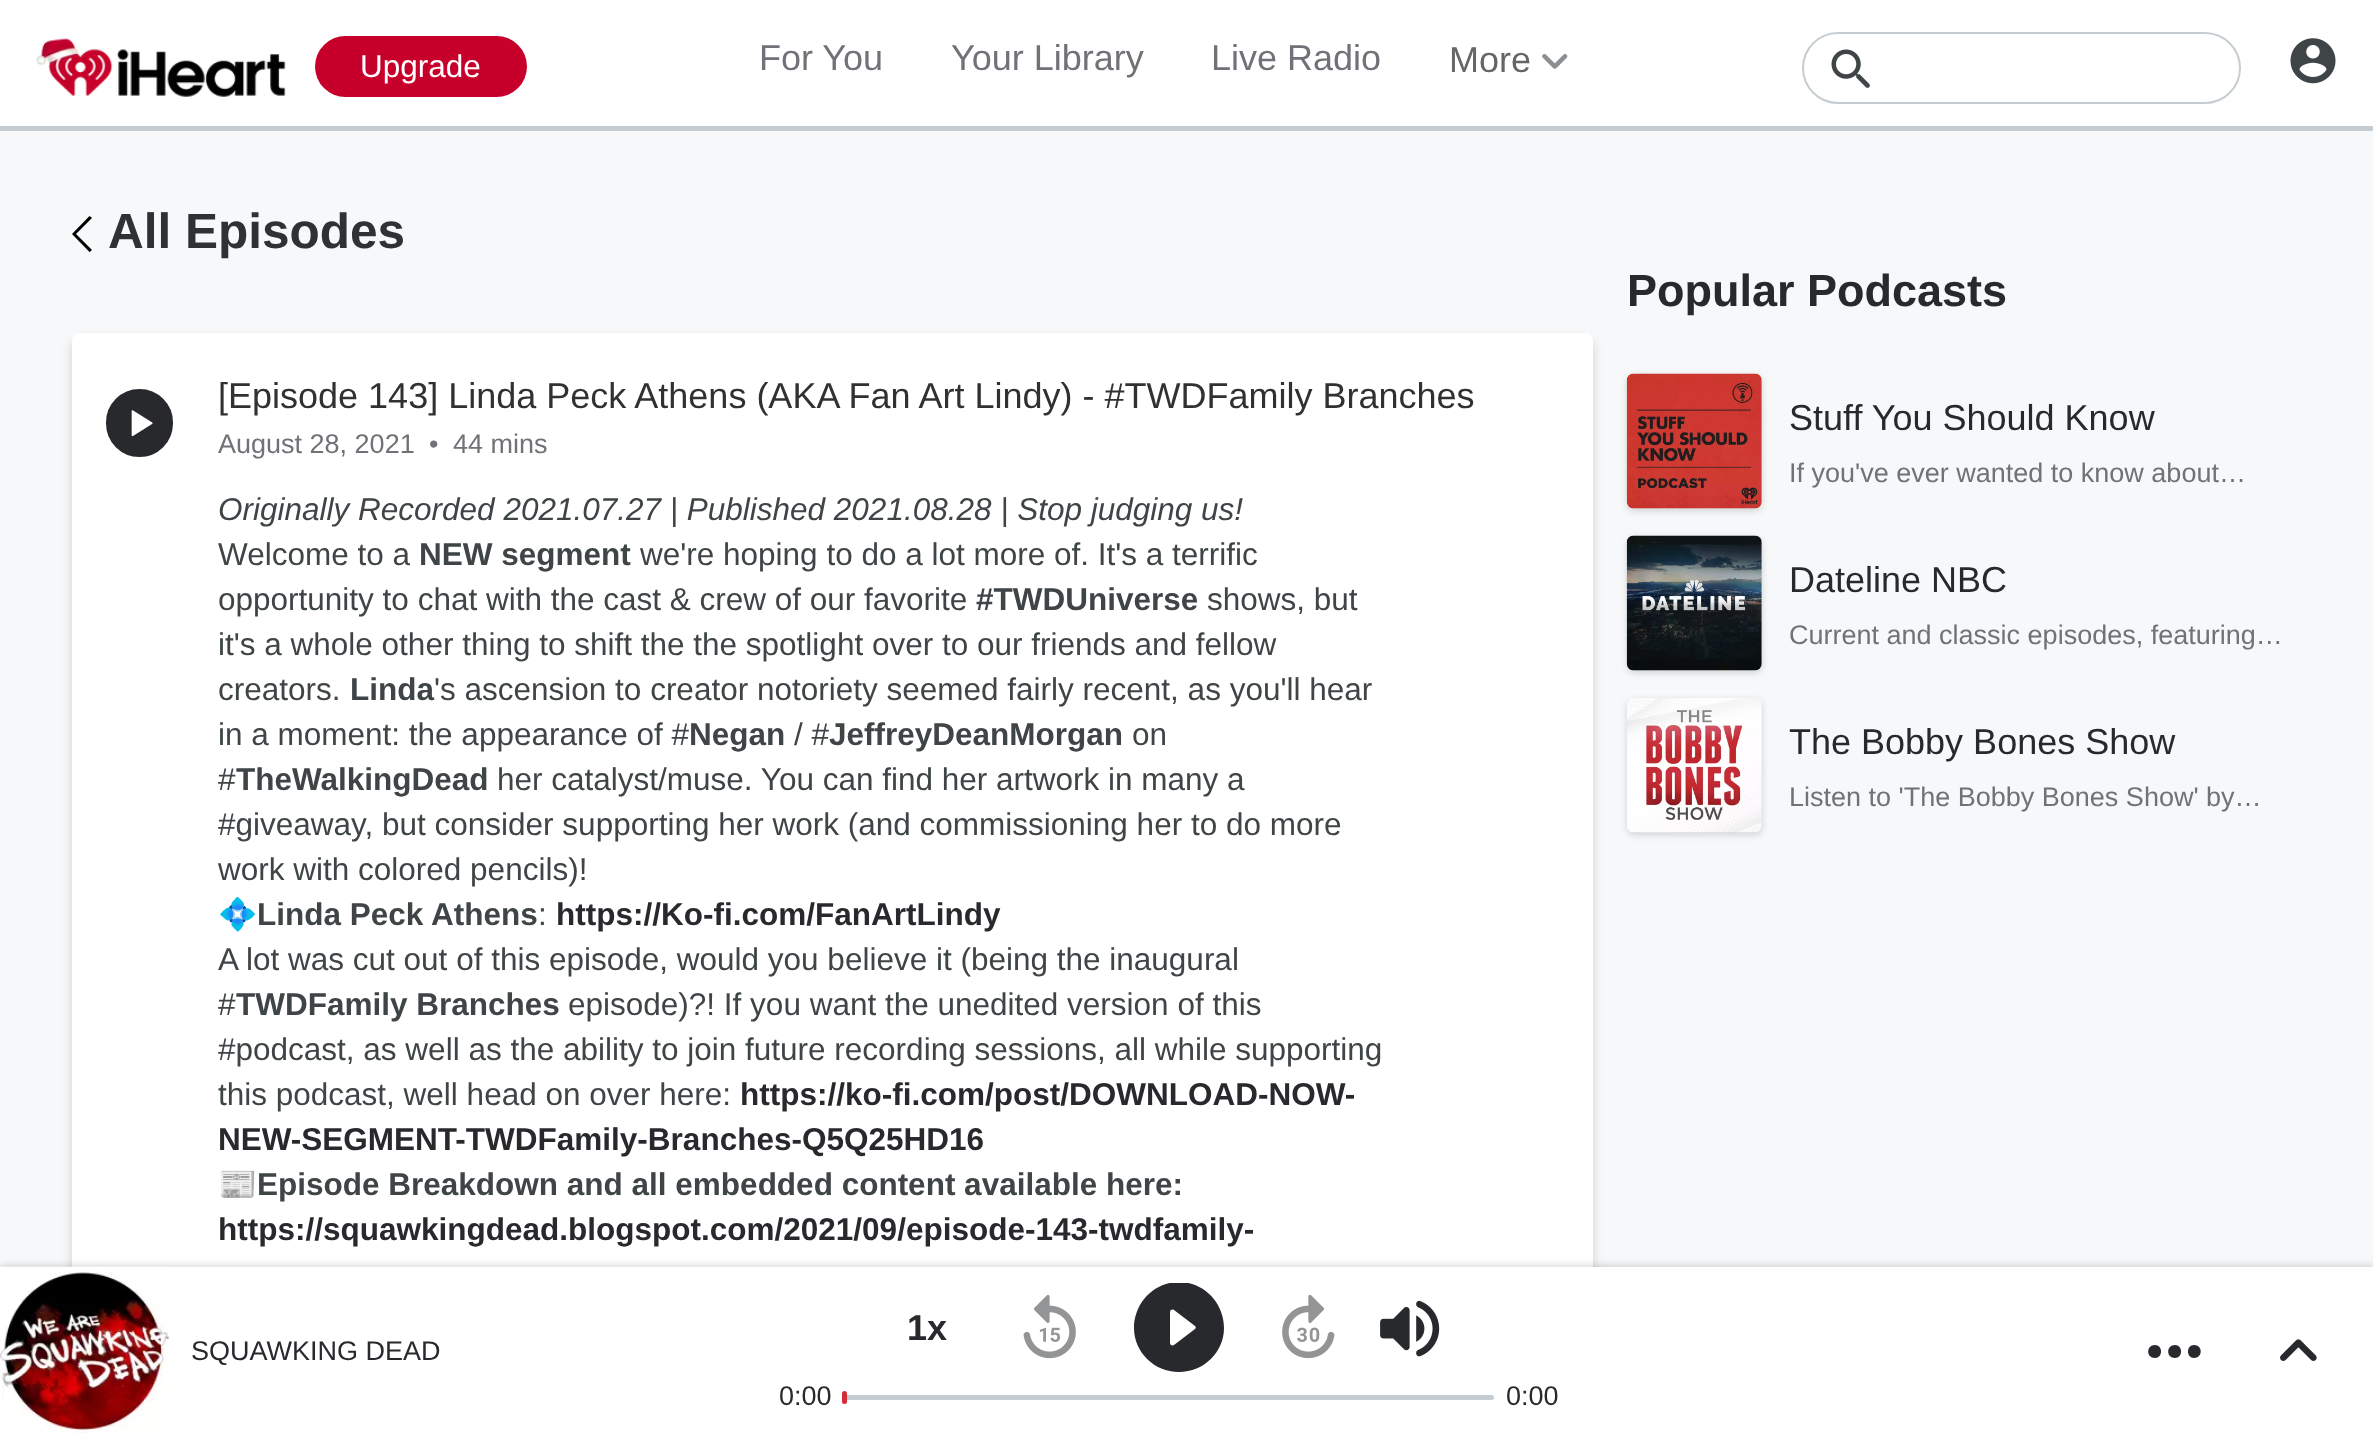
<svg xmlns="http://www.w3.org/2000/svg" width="2373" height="1435">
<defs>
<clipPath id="clip1"><rect x="1134" y="1283" width="90" height="90"/></clipPath>
</defs>
<rect width="100%" height="100%" fill="#f6f8f9"/>
<rect width="2373" height="126" fill="#fff"/>
<rect y="126" width="2373" height="5" fill="#c5cdd2"/>
<image x="36" y="38" width="250" height="59" href="media/1.png"/>
<rect x="315" y="36" width="212" height="61" rx="30.5" fill="#c6002b"/>
<text x="360" y="77" style="font-family:Liberation Sans;font-size:31.5px;fill:#fff">Upgrade</text>
<text x="759" y="70" style="font-family:Liberation Sans;font-size:36px;fill:#717277">For You</text>
<text x="951" y="70" style="font-family:Liberation Sans;font-size:36px;fill:#717277">Your Library</text>
<text x="1211" y="70" style="font-family:Liberation Sans;font-size:36px;fill:#717277">Live Radio</text>
<text x="1449" y="72" style="font-family:Liberation Sans;font-size:36px;fill:#666">More</text>
<image x="1542" y="54" width="26" height="15" href="media/2.png"/>
<rect x="1803" y="33" width="437" height="70" rx="35" fill="none" stroke="#c5cdd2" stroke-width="2"/>
<image x="1831" y="49" width="39" height="39" href="media/3.png"/>
<image x="2290" y="38" width="46" height="46" href="media/4.png"/>
<path d="M89.5 216l-17.5 18l17.5 18l2.5-2l-16-16l16-16z" fill="#000"/>
<text x="108" y="248" style="font-family:Liberation Sans;font-size:49.5px;font-weight:bold;fill:#2f3133">All Episodes</text>
<rect x="72" y="340" width="1521" height="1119" rx="7" fill="#00000026" filter="blur(5.5px)"/>
<rect x="72" y="333" width="1521" height="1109" rx="7" fill="#fff"/>
<rect x="107" y="390" width="65" height="66" rx="32.5" fill="#27292d" stroke="#27292d" stroke-width="2"/>
<image x="131" y="410" width="22" height="27" href="media/5.png"/>
<text x="218" y="408" style="font-family:Liberation Sans;font-size:36px;fill:#2f3133">[Episode 143] Linda Peck Athens (AKA Fan Art Lindy) - #TWDFamily Branches</text>
<text x="218" y="453" style="font-family:Liberation Sans;font-size:27px;fill:#717277">August 28, 2021</text>
<text x="429" y="453" style="font-family:Liberation Sans;font-size:27px;fill:#717277">•</text>
<text x="453" y="453" style="font-family:Liberation Sans;font-size:27px;fill:#717277">44 mins</text>
<text x="218" y="520" style="font-family:Liberation Sans;font-size:31.5px;font-style:italic;fill:#3f4447">Originally Recorded 2021.07.27 | Published 2021.08.28 | Stop judging us!</text>
<text x="218" y="565" style="font-family:Liberation Sans;font-size:31.5px;fill:#3f4447">Welcome to a</text>
<text x="419" y="565" style="font-family:Liberation Sans;font-size:31.5px;font-weight:bold;fill:#3f4447">NEW segment</text>
<text x="640" y="565" style="font-family:Liberation Sans;font-size:31.5px;fill:#3f4447">we're hoping to do a lot more of. It's a terrific</text>
<text x="218" y="610" style="font-family:Liberation Sans;font-size:31.5px;fill:#3f4447">opportunity to chat with the cast &amp; crew of our favorite</text>
<text x="976" y="610" style="font-family:Liberation Sans;font-size:31.5px;font-weight:bold;fill:#3f4447">#TWDUniverse</text>
<text x="1207" y="610" style="font-family:Liberation Sans;font-size:31.5px;fill:#3f4447">shows, but</text>
<text x="218" y="655" style="font-family:Liberation Sans;font-size:31.5px;fill:#3f4447">it's a whole other thing to shift the the spotlight over to our friends and fellow</text>
<text x="218" y="700" style="font-family:Liberation Sans;font-size:31.5px;fill:#3f4447">creators.</text>
<text x="350" y="700" style="font-family:Liberation Sans;font-size:31.5px;font-weight:bold;fill:#3f4447">Linda</text>
<text x="434" y="700" style="font-family:Liberation Sans;font-size:31.5px;fill:#3f4447">'s ascension to creator notoriety seemed fairly recent, as you'll hear</text>
<text x="218" y="745" style="font-family:Liberation Sans;font-size:31.5px;fill:#3f4447">in a moment: the appearance of #</text>
<text x="689" y="745" style="font-family:Liberation Sans;font-size:31.5px;font-weight:bold;fill:#3f4447">Negan</text>
<text x="794" y="745" style="font-family:Liberation Sans;font-size:31.5px;fill:#3f4447">/ #</text>
<text x="829" y="745" style="font-family:Liberation Sans;font-size:31.5px;font-weight:bold;fill:#3f4447">JeffreyDeanMorgan</text>
<text x="1132" y="745" style="font-family:Liberation Sans;font-size:31.5px;fill:#3f4447">on</text>
<text x="218" y="790" style="font-family:Liberation Sans;font-size:31.5px;fill:#3f4447">#</text>
<text x="236" y="790" style="font-family:Liberation Sans;font-size:31.5px;font-weight:bold;fill:#3f4447">TheWalkingDead</text>
<text x="497" y="790" style="font-family:Liberation Sans;font-size:31.5px;fill:#3f4447">her catalyst/muse. You can find her artwork in many a</text>
<text x="218" y="835" style="font-family:Liberation Sans;font-size:31.5px;fill:#3f4447">#giveaway, but consider supporting her work (and commissioning her to do more</text>
<text x="218" y="880" style="font-family:Liberation Sans;font-size:31.5px;fill:#3f4447">work with colored pencils)!</text>
<text x="218" y="925" style="font-family:Noto Color Emoji;font-size:31.5px;fill:#3f4447">💠</text>
<text x="257" y="925" style="font-family:Liberation Sans;font-size:31.5px;font-weight:bold;fill:#3f4447">Linda Peck Athens</text>
<text x="538" y="925" style="font-family:Liberation Sans;font-size:31.5px;fill:#3f4447">:</text>
<text x="556" y="925" style="font-family:Liberation Sans;font-size:31.5px;font-weight:bold;fill:#27292d">https://Ko-fi.com/FanArtLindy</text>
<text x="218" y="970" style="font-family:Liberation Sans;font-size:31.5px;fill:#3f4447">A lot was cut out of this episode, would you believe it (being the inaugural</text>
<text x="218" y="1015" style="font-family:Liberation Sans;font-size:31.5px;fill:#3f4447">#</text>
<text x="236" y="1015" style="font-family:Liberation Sans;font-size:31.5px;font-weight:bold;fill:#3f4447">TWDFamily Branches</text>
<text x="568" y="1015" style="font-family:Liberation Sans;font-size:31.5px;fill:#3f4447">episode)?! If you want the unedited version of this</text>
<text x="218" y="1060" style="font-family:Liberation Sans;font-size:31.5px;fill:#3f4447">#podcast, as well as the ability to join future recording sessions, all while supporting</text>
<text x="218" y="1105" style="font-family:Liberation Sans;font-size:31.5px;fill:#3f4447">this podcast, well head on over here:</text>
<text x="740" y="1105" style="font-family:Liberation Sans;font-size:31.5px;font-weight:bold;fill:#27292d">https://ko-fi.com/post/DOWNLOAD-NOW-</text>
<text x="218" y="1150" style="font-family:Liberation Sans;font-size:31.5px;font-weight:bold;fill:#27292d">NEW-SEGMENT-TWDFamily-Branches-Q5Q25HD16</text>
<text x="218" y="1195" style="font-family:Noto Color Emoji;font-size:31.5px;font-weight:bold;fill:#3f4447">📰</text>
<text x="257" y="1195" style="font-family:Liberation Sans;font-size:31.5px;font-weight:bold;fill:#3f4447">Episode Breakdown and all embedded content available here:</text>
<text x="218" y="1240" style="font-family:Liberation Sans;font-size:31.5px;font-weight:bold;fill:#27292d">https://squawkingdead.blogspot.com/2021/09/episode-143-twdfamily-</text>
<text x="1627" y="306" style="font-family:Liberation Sans;font-size:45px;font-weight:bold;fill:#27292d">Popular Podcasts</text>
<rect x="1627" y="376" width="135" height="135" rx="7" fill="#00000026" filter="blur(3.5px)"/>
<image x="1626" y="373" width="136" height="136" href="media/6.png"/>
<text x="1789" y="430" style="font-family:Liberation Sans;font-size:36px;fill:#27292d">Stuff You Should Know</text>
<text x="1789" y="482" style="font-family:Liberation Sans;font-size:27px;fill:#717277">If you've ever wanted to know about…</text>
<rect x="1627" y="538" width="135" height="135" rx="7" fill="#00000026" filter="blur(3.5px)"/>
<image x="1626" y="535" width="136" height="136" href="media/7.png"/>
<text x="1789" y="592" style="font-family:Liberation Sans;font-size:36px;fill:#27292d">Dateline NBC</text>
<text x="1789" y="644" style="font-family:Liberation Sans;font-size:27px;fill:#717277">Current and classic episodes, featuring…</text>
<rect x="1627" y="700" width="135" height="135" rx="7" fill="#00000026" filter="blur(3.5px)"/>
<image x="1627" y="698" width="135" height="135" href="media/8.png"/>
<text x="1789" y="754" style="font-family:Liberation Sans;font-size:36px;fill:#27292d">The Bobby Bones Show</text>
<text x="1789" y="806" style="font-family:Liberation Sans;font-size:27px;fill:#717277">Listen to 'The Bobby Bones Show' by…</text>
<rect y="1265" width="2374" height="168" fill="#00000026" filter="blur(3.5px)"/>
<rect y="1267" width="2373" height="168" fill="#fff"/>
<image x="0" y="1266" width="169" height="168" href="media/9.png"/>
<text x="191" y="1360" style="font-family:Liberation Sans;font-size:27px;fill:#27292d">SQUAWKING DEAD</text>
<text x="907" y="1340" style="font-family:Liberation Sans;font-size:36px;font-weight:bold;fill:#27292d">1x</text>
<image x="1023" y="1294" width="53" height="65" href="media/10.png"/>
<g clip-path="url(#clip1)">
<path d="M1179 1282c-25 0-45 21-45 46c0 24 20 44 45 44c25 0 45-20 45-44c0-25-20-46-45-46zm-9 61v-31c0-2 2-3 4-2l21 16c1 1 1 2 0 3l-21 16c-2 1-4 0-4-2z" fill="#27292d"/>
</g>
<image x="1282" y="1294" width="53" height="65" href="media/11.png"/>
<image x="1380" y="1300" width="60" height="57" href="media/12.png"/>
<text x="779" y="1405" style="font-family:Liberation Sans;font-size:27px;fill:#27292d">0:00</text>
<rect x="844" y="1395" width="650" height="5" rx="2.5" fill="#c5cdd2"/>
<rect x="842" y="1391" width="5" height="13" rx="2.5" fill="#d52d37"/>
<text x="1506" y="1405" style="font-family:Liberation Sans;font-size:27px;fill:#27292d">0:00</text>
<path d="M2155 1345c-9 0-9 13 0 13c8 0 8-13 0-13zm39 0c-8 0-8 13 0 13c9 0 9-13 0-13zm-19 0c-9 0-9 13 0 13c8 0 8-13 0-13z" fill="#27292d"/>
<image x="2280" y="1339" width="37" height="22" href="media/13.png"/>
</svg>
